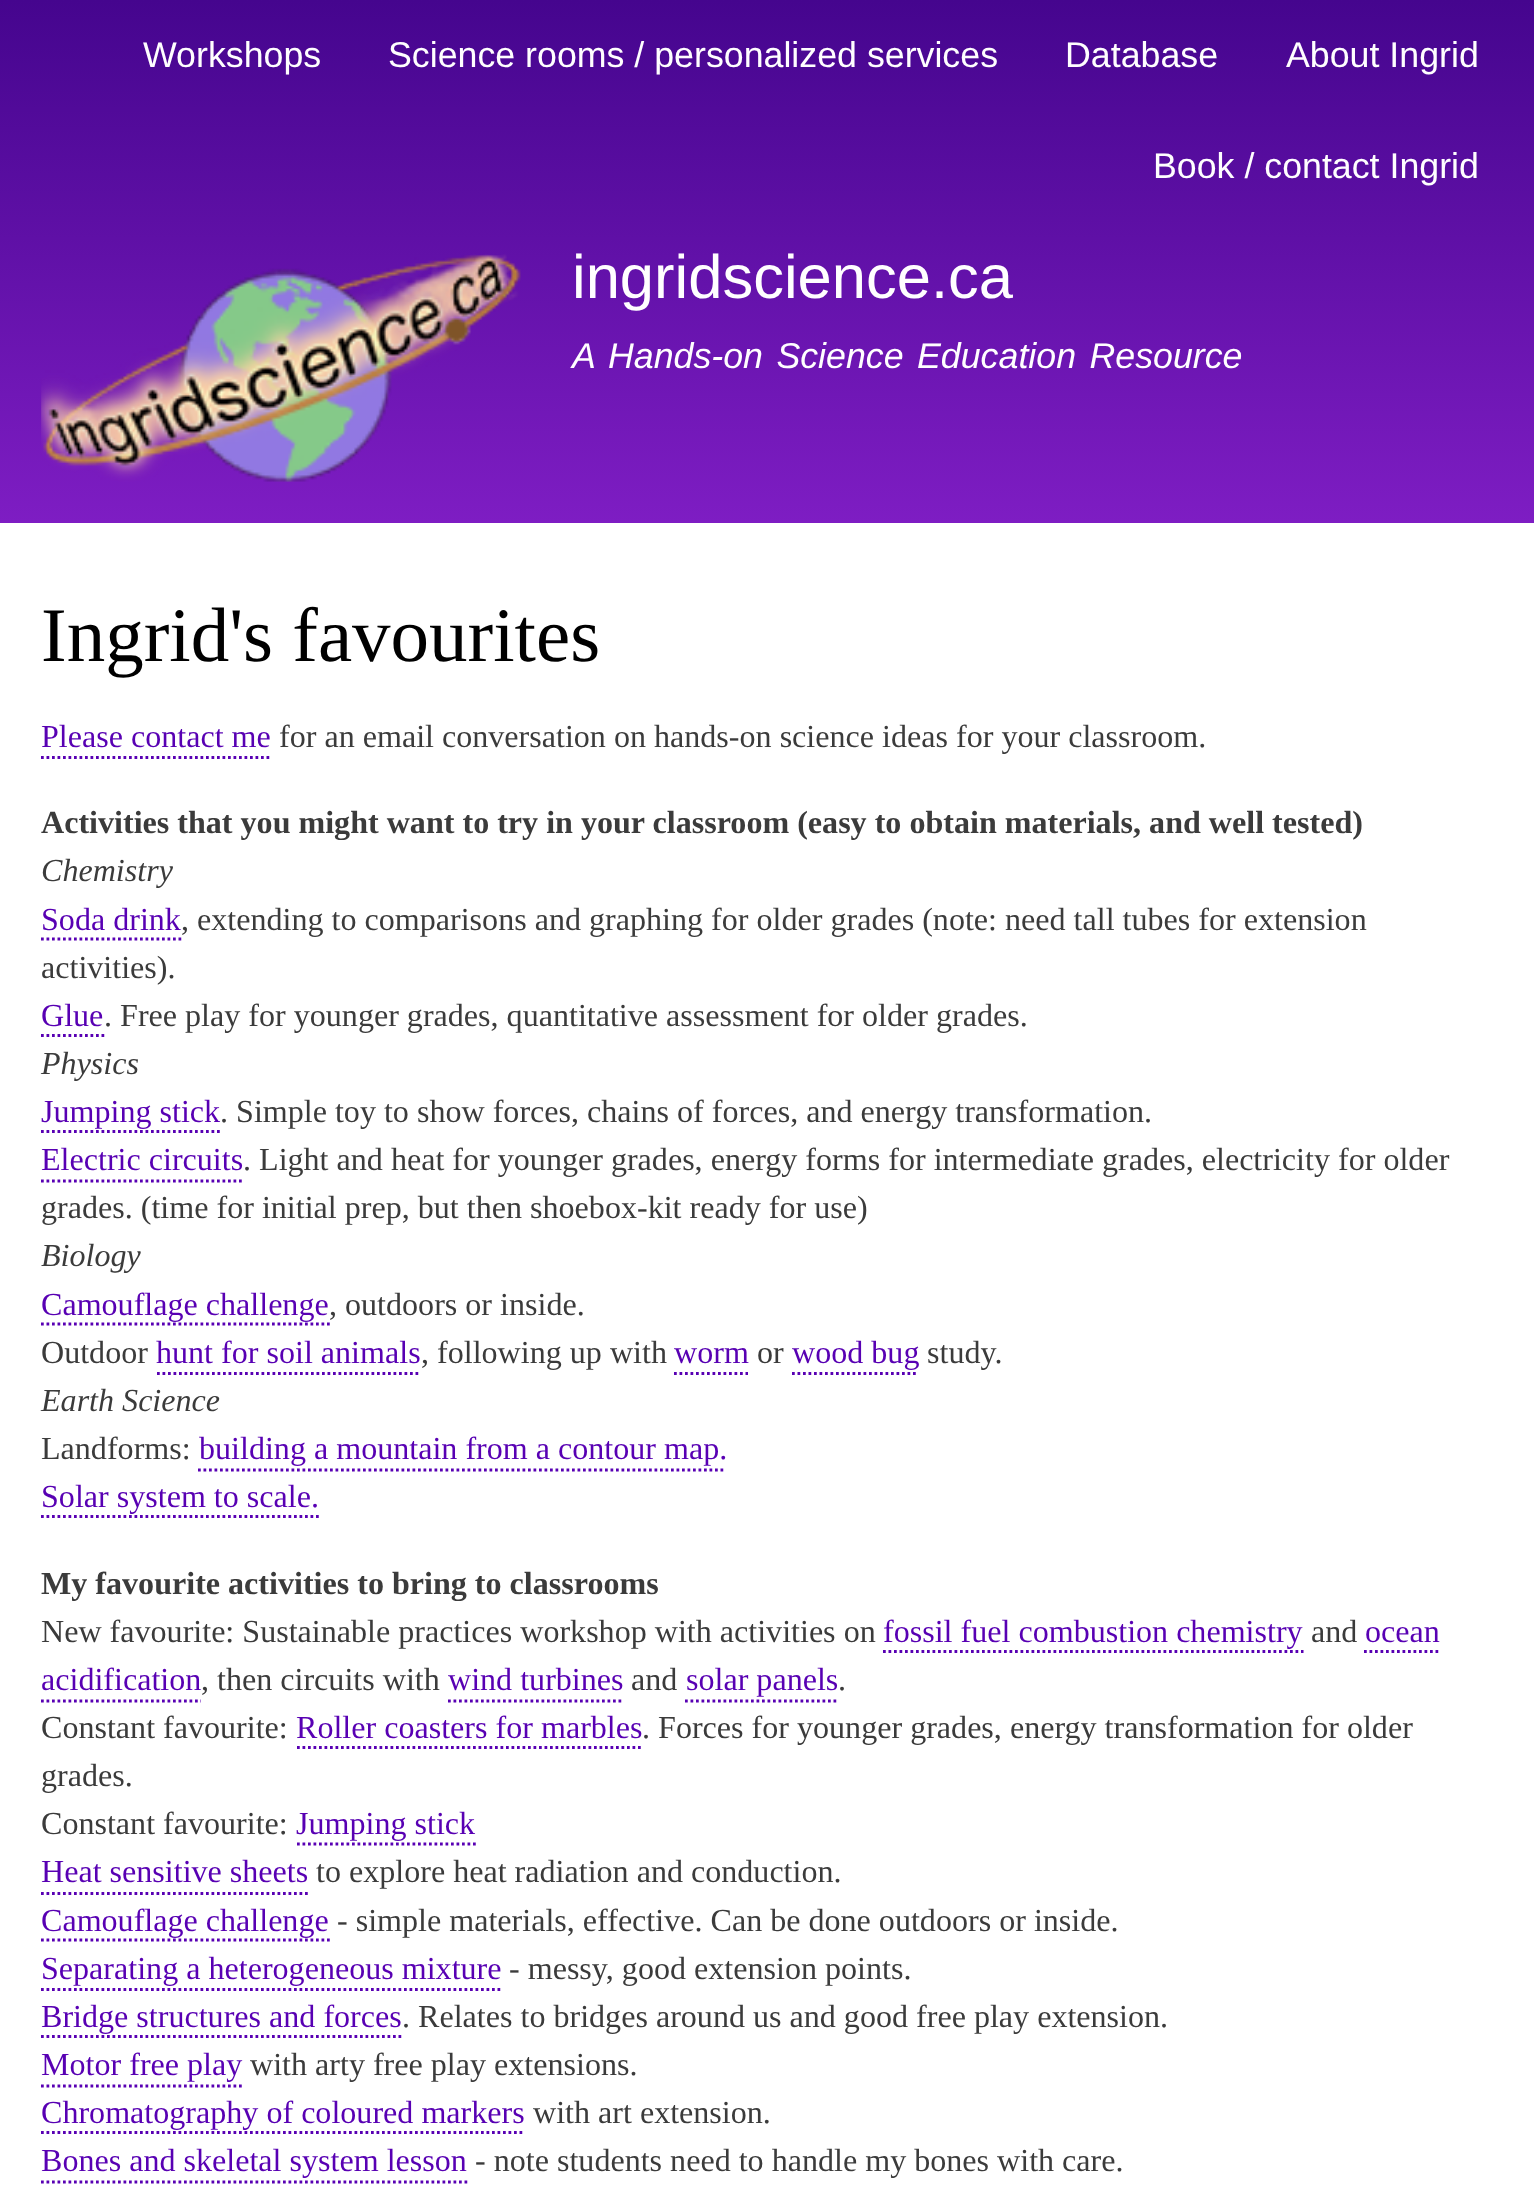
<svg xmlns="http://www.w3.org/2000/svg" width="1534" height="2189">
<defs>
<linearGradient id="g1" gradientUnits="userSpaceOnUse" x1="767" y1="0" x2="767" y2="523"><stop offset="0" stop-color="#45058e"/><stop offset="1" stop-color="#7e1dc3"/></linearGradient>
</defs>
<rect width="100%" height="100%" fill="#fff"/>
<rect width="1534" height="523" fill="url(#g1)"/>
<text x="143" y="67" style="font-family:Liberation Sans;font-size:35.75px;fill:#fffeff">Workshops</text>
<text x="388" y="67" style="font-family:Liberation Sans;font-size:35.75px;fill:#fffeff">Science rooms / personalized services</text>
<text x="1065" y="67" style="font-family:Liberation Sans;font-size:35.75px;fill:#fffeff">Database</text>
<text x="1286" y="67" style="font-family:Liberation Sans;font-size:35.75px;fill:#fffeff">About Ingrid</text>
<text x="1153" y="178" style="font-family:Liberation Sans;font-size:35.75px;fill:#fffeff">Book / contact Ingrid</text>
<image x="41" y="254" width="480" height="228" href="media/1.png"/>
<text x="572" y="298" style="font-family:Liberation Sans;font-size:61.5px;fill:#fffeff">ingridscience.ca</text>
<text x="572" y="368" word-spacing="3.5" style="font-family:Liberation Sans;font-size:35.75px;font-style:italic;fill:#fffeff">A Hands-on Science Education Resource</text>
<text x="41" y="661" style="font-family:Liberation Serif;font-size:77px;fill:#000">Ingrid's favourites</text>
<text x="41" y="747" style="font-family:Liberation Serif;font-size:32.1px;fill:#5800b3">Please contact me</text>
<path d="M41 757.5h231" fill="none" stroke="#5800b3" stroke-width="2.8" stroke-dasharray="2.75 2.75"/>
<text x="279" y="747" style="font-family:Liberation Serif;font-size:32.1px;fill:#3b3b3b">for an email conversation on hands-on science ideas for your classroom.</text>
<text x="41" y="833" style="font-family:Liberation Serif;font-size:32.1px;font-weight:bold;fill:#3b3b3b">Activities that you might want to try in your classroom (easy to obtain materials, and well tested)</text>
<text x="41" y="881" style="font-family:Liberation Serif;font-size:32.1px;font-style:italic;fill:#3b3b3b">Chemistry</text>
<text x="41" y="930" style="font-family:Liberation Serif;font-size:32.1px;fill:#5800b3">Soda drink</text>
<path d="M41 939h140.5" fill="none" stroke="#5800b3" stroke-width="2.8" stroke-dasharray="2.75 2.75"/>
<text x="181" y="930" style="font-family:Liberation Serif;font-size:32.1px;fill:#3b3b3b">, extending to comparisons and graphing for older grades (note: need tall tubes for extension</text>
<text x="41" y="978" style="font-family:Liberation Serif;font-size:32.1px;fill:#3b3b3b">activities).</text>
<text x="41" y="1026" style="font-family:Liberation Serif;font-size:32.1px;fill:#5800b3">Glue</text>
<path d="M41 1035.5h63.5" fill="none" stroke="#5800b3" stroke-width="2.8" stroke-dasharray="2.75 2.75"/>
<text x="104" y="1026" style="font-family:Liberation Serif;font-size:32.1px;fill:#3b3b3b">. Free play for younger grades, quantitative assessment for older grades.</text>
<text x="41" y="1074" style="font-family:Liberation Serif;font-size:32.1px;font-style:italic;fill:#3b3b3b">Physics</text>
<text x="41" y="1122" style="font-family:Liberation Serif;font-size:32.1px;fill:#5800b3">Jumping stick</text>
<path d="M41 1131.5h179" fill="none" stroke="#5800b3" stroke-width="2.8" stroke-dasharray="2.75 2.75"/>
<text x="220" y="1122" style="font-family:Liberation Serif;font-size:32.1px;fill:#3b3b3b">. Simple toy to show forces, chains of forces, and energy transformation.</text>
<text x="41" y="1170" style="font-family:Liberation Serif;font-size:32.1px;fill:#5800b3">Electric circuits</text>
<path d="M41 1181h201" fill="none" stroke="#5800b3" stroke-width="2.8" stroke-dasharray="2.75 2.75"/>
<text x="243" y="1170" style="font-family:Liberation Serif;font-size:32.1px;fill:#3b3b3b">. Light and heat for younger grades, energy forms for intermediate grades, electricity for older</text>
<text x="41" y="1218" style="font-family:Liberation Serif;font-size:32.1px;fill:#3b3b3b">grades. (time for initial prep, but then shoebox-kit ready for use)</text>
<text x="41" y="1266" style="font-family:Liberation Serif;font-size:32.1px;font-style:italic;fill:#3b3b3b">Biology</text>
<text x="41" y="1315" style="font-family:Liberation Serif;font-size:32.1px;fill:#5800b3">Camouflage challenge</text>
<path d="M41 1324h289" fill="none" stroke="#5800b3" stroke-width="2.8" stroke-dasharray="2.75 2.75"/>
<text x="329" y="1315" style="font-family:Liberation Serif;font-size:32.1px;fill:#3b3b3b">, outdoors or inside.</text>
<text x="41" y="1363" style="font-family:Liberation Serif;font-size:32.1px;fill:#3b3b3b">Outdoor</text>
<text x="156" y="1363" style="font-family:Liberation Serif;font-size:32.1px;fill:#5800b3">hunt for soil animals</text>
<path d="M157 1373.5h264" fill="none" stroke="#5800b3" stroke-width="2.8" stroke-dasharray="2.75 2.75"/>
<text x="421" y="1363" style="font-family:Liberation Serif;font-size:32.1px;fill:#3b3b3b">, following up with</text>
<text x="674" y="1363" style="font-family:Liberation Serif;font-size:32.1px;fill:#5800b3">worm</text>
<path d="M674 1373.5h74" fill="none" stroke="#5800b3" stroke-width="2.8" stroke-dasharray="2.75 2.75"/>
<text x="757" y="1363" style="font-family:Liberation Serif;font-size:32.1px;fill:#3b3b3b">or</text>
<text x="792" y="1363" style="font-family:Liberation Serif;font-size:32.1px;fill:#5800b3">wood bug</text>
<path d="M792 1373.5h126.5" fill="none" stroke="#5800b3" stroke-width="2.8" stroke-dasharray="2.75 2.75"/>
<text x="927" y="1363" style="font-family:Liberation Serif;font-size:32.1px;fill:#3b3b3b">study.</text>
<text x="41" y="1411" style="font-family:Liberation Serif;font-size:32.1px;font-style:italic;fill:#3b3b3b">Earth Science</text>
<text x="41" y="1459" style="font-family:Liberation Serif;font-size:32.1px;fill:#3b3b3b">Landforms:</text>
<text x="199" y="1459" style="font-family:Liberation Serif;font-size:32.1px;fill:#5800b3">building a mountain from a contour map.</text>
<path d="M198 1470h528" fill="none" stroke="#5800b3" stroke-width="2.8" stroke-dasharray="2.75 2.75"/>
<text x="41" y="1507" style="font-family:Liberation Serif;font-size:32.1px;fill:#5800b3">Solar system to scale.</text>
<path d="M41 1516.5h278" fill="none" stroke="#5800b3" stroke-width="2.8" stroke-dasharray="2.75 2.75"/>
<text x="41" y="1594" style="font-family:Liberation Serif;font-size:32.1px;font-weight:bold;fill:#3b3b3b">My favourite activities to bring to classrooms</text>
<text x="41" y="1642" style="font-family:Liberation Serif;font-size:32.1px;fill:#3b3b3b">New favourite: Sustainable practices workshop with activities on</text>
<text x="883" y="1642" style="font-family:Liberation Serif;font-size:32.1px;fill:#5800b3">fossil fuel combustion chemistry</text>
<path d="M883 1651.5h420.5" fill="none" stroke="#5800b3" stroke-width="2.8" stroke-dasharray="2.75 2.75"/>
<text x="1311" y="1642" style="font-family:Liberation Serif;font-size:32.1px;fill:#3b3b3b">and</text>
<text x="1365" y="1642" style="font-family:Liberation Serif;font-size:32.1px;fill:#5800b3">ocean</text>
<path d="M1364 1651.5h77" fill="none" stroke="#5800b3" stroke-width="2.8" stroke-dasharray="2.75 2.75"/>
<text x="41" y="1690" style="font-family:Liberation Serif;font-size:32.1px;fill:#5800b3">acidification</text>
<path d="M41 1701h160" fill="none" stroke="#5800b3" stroke-width="2.8" stroke-dasharray="2.75 2.75"/>
<text x="201" y="1690" style="font-family:Liberation Serif;font-size:32.1px;fill:#3b3b3b">, then circuits with</text>
<text x="448" y="1690" style="font-family:Liberation Serif;font-size:32.1px;fill:#5800b3">wind turbines</text>
<path d="M448 1701h176" fill="none" stroke="#5800b3" stroke-width="2.8" stroke-dasharray="2.75 2.75"/>
<text x="631" y="1690" style="font-family:Liberation Serif;font-size:32.1px;fill:#3b3b3b">and</text>
<text x="686" y="1690" style="font-family:Liberation Serif;font-size:32.1px;fill:#5800b3">solar panels</text>
<path d="M685 1701h154" fill="none" stroke="#5800b3" stroke-width="2.8" stroke-dasharray="2.75 2.75"/>
<text x="838" y="1690" style="font-family:Liberation Serif;font-size:32.1px;fill:#3b3b3b">.</text>
<text x="41" y="1738" style="font-family:Liberation Serif;font-size:32.1px;fill:#3b3b3b">Constant favourite:</text>
<text x="296" y="1738" style="font-family:Liberation Serif;font-size:32.1px;fill:#5800b3">Roller coasters for marbles</text>
<path d="M297 1747.5h346.5" fill="none" stroke="#5800b3" stroke-width="2.8" stroke-dasharray="2.75 2.75"/>
<text x="642" y="1738" style="font-family:Liberation Serif;font-size:32.1px;fill:#3b3b3b">. Forces for younger grades, energy transformation for older</text>
<text x="41" y="1786" style="font-family:Liberation Serif;font-size:32.1px;fill:#3b3b3b">grades.</text>
<text x="41" y="1834" style="font-family:Liberation Serif;font-size:32.1px;fill:#3b3b3b">Constant favourite:</text>
<text x="296" y="1834" style="font-family:Liberation Serif;font-size:32.1px;fill:#5800b3">Jumping stick</text>
<path d="M297 1844h179" fill="none" stroke="#5800b3" stroke-width="2.8" stroke-dasharray="2.75 2.75"/>
<text x="41" y="1882" style="font-family:Liberation Serif;font-size:32.1px;fill:#5800b3">Heat sensitive sheets</text>
<path d="M41 1893.5h267" fill="none" stroke="#5800b3" stroke-width="2.8" stroke-dasharray="2.75 2.75"/>
<text x="316" y="1882" style="font-family:Liberation Serif;font-size:32.1px;fill:#3b3b3b">to explore heat radiation and conduction.</text>
<text x="41" y="1931" style="font-family:Liberation Serif;font-size:32.1px;fill:#5800b3">Camouflage challenge</text>
<path d="M41 1940h289" fill="none" stroke="#5800b3" stroke-width="2.8" stroke-dasharray="2.75 2.75"/>
<text x="337" y="1931" style="font-family:Liberation Serif;font-size:32.1px;fill:#3b3b3b">- simple materials, effective. Can be done outdoors or inside.</text>
<text x="41" y="1979" style="font-family:Liberation Serif;font-size:32.1px;fill:#5800b3">Separating a heterogeneous mixture</text>
<path d="M41 1989.5h459.5" fill="none" stroke="#5800b3" stroke-width="2.8" stroke-dasharray="2.75 2.75"/>
<text x="509" y="1979" style="font-family:Liberation Serif;font-size:32.1px;fill:#3b3b3b">- messy, good extension points.</text>
<text x="41" y="2027" style="font-family:Liberation Serif;font-size:32.1px;fill:#5800b3">Bridge structures and forces</text>
<path d="M41 2036.5h360.5" fill="none" stroke="#5800b3" stroke-width="2.8" stroke-dasharray="2.75 2.75"/>
<text x="402" y="2027" style="font-family:Liberation Serif;font-size:32.1px;fill:#3b3b3b">. Relates to bridges around us and good free play extension.</text>
<text x="41" y="2075" style="font-family:Liberation Serif;font-size:32.1px;fill:#5800b3">Motor free play</text>
<path d="M41 2086h201" fill="none" stroke="#5800b3" stroke-width="2.8" stroke-dasharray="2.75 2.75"/>
<text x="250" y="2075" style="font-family:Liberation Serif;font-size:32.1px;fill:#3b3b3b">with arty free play extensions.</text>
<text x="41" y="2123" style="font-family:Liberation Serif;font-size:32.1px;fill:#5800b3">Chromatography of coloured markers</text>
<path d="M41 2132.5h484" fill="none" stroke="#5800b3" stroke-width="2.8" stroke-dasharray="2.75 2.75"/>
<text x="533" y="2123" style="font-family:Liberation Serif;font-size:32.1px;fill:#3b3b3b">with art extension.</text>
<text x="41" y="2171" style="font-family:Liberation Serif;font-size:32.1px;fill:#5800b3">Bones and skeletal system lesson</text>
<path d="M41 2182h426.5" fill="none" stroke="#5800b3" stroke-width="2.8" stroke-dasharray="2.75 2.75"/>
<text x="475" y="2171" style="font-family:Liberation Serif;font-size:32.1px;fill:#3b3b3b">- note students need to handle my bones with care.</text>
</svg>
